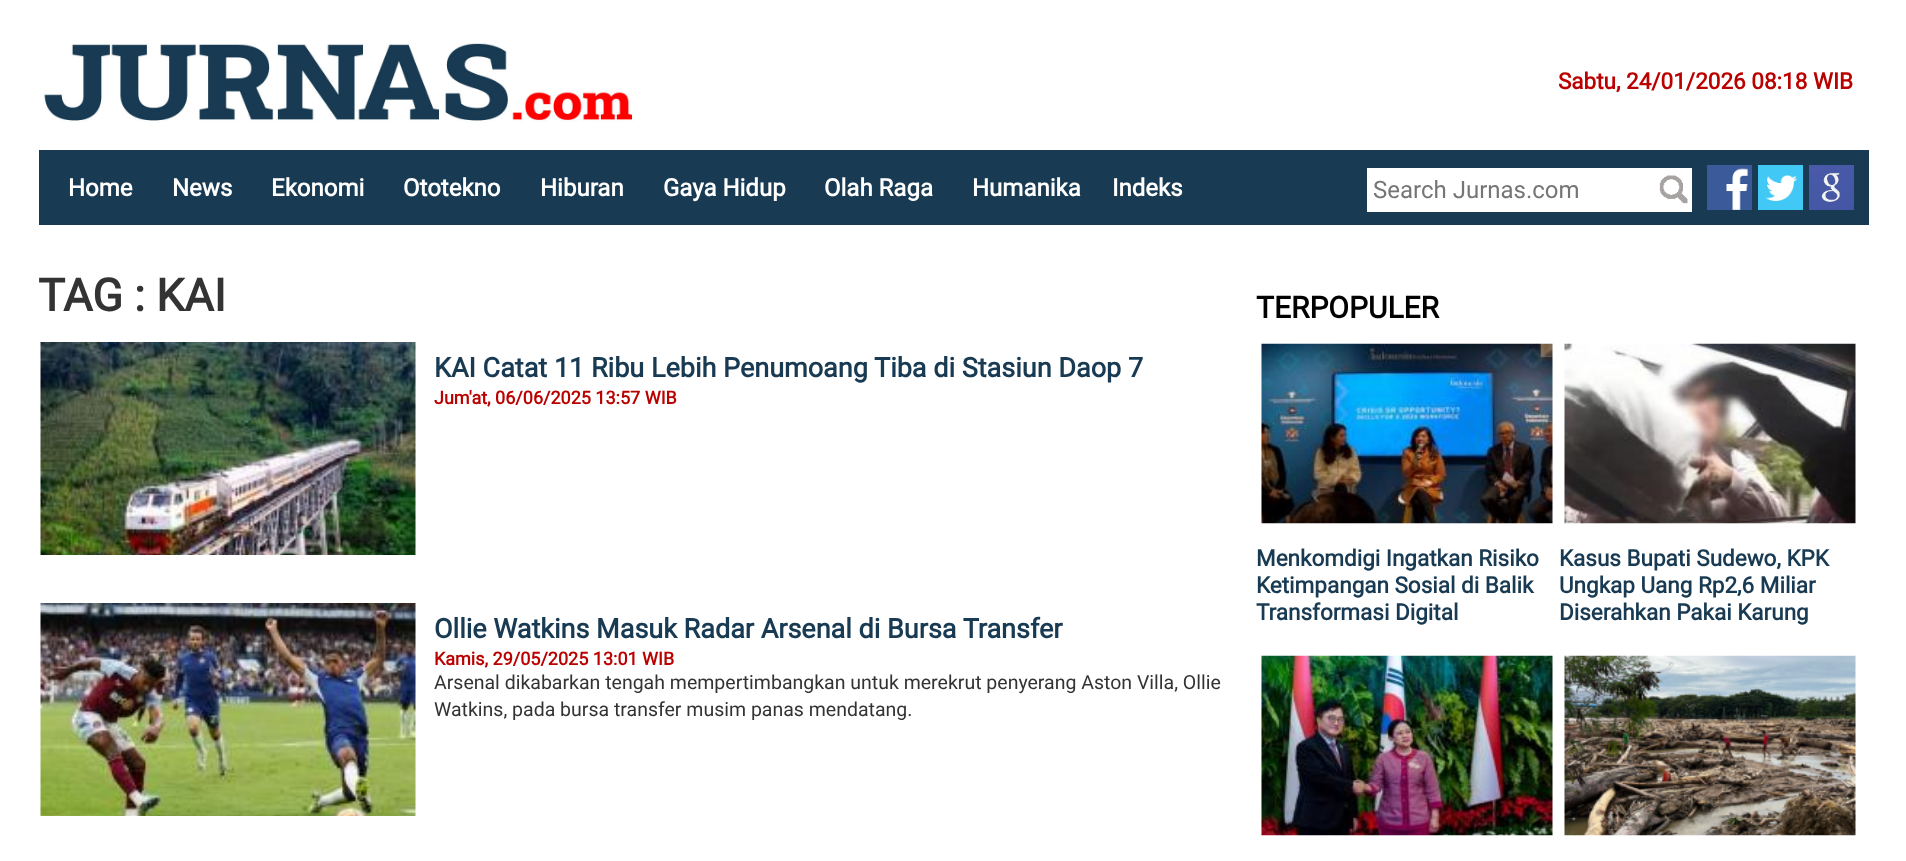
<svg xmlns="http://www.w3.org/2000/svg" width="1906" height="861">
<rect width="100%" height="100%" fill="#fff"/>
<image x="43" y="43" width="591" height="79" href="media/1.png"/>
<text x="1558" y="89" style="font-family:Roboto;font-size:22.5px;font-weight:bold;fill:#b00">Sabtu, 24/01/2026 08:18 WIB</text>
<rect x="39" y="150" width="1830" height="75" fill="#183a52"/>
<text x="68" y="196" style="font-family:Roboto;font-size:24px;font-weight:bold;fill:#fff">Home</text>
<text x="172" y="196" style="font-family:Roboto;font-size:24px;font-weight:bold;fill:#fff">News</text>
<text x="271" y="196" style="font-family:Roboto;font-size:24px;font-weight:bold;fill:#fff">Ekonomi</text>
<text x="403" y="196" style="font-family:Roboto;font-size:24px;font-weight:bold;fill:#fff">Ototekno</text>
<text x="540" y="196" style="font-family:Roboto;font-size:24px;font-weight:bold;fill:#fff">Hiburan</text>
<text x="663" y="196" style="font-family:Roboto;font-size:24px;font-weight:bold;fill:#fff">Gaya Hidup</text>
<text x="824" y="196" style="font-family:Roboto;font-size:24px;font-weight:bold;fill:#fff">Olah Raga</text>
<text x="972" y="196" style="font-family:Roboto;font-size:24px;font-weight:bold;fill:#fff">Humanika</text>
<text x="1112" y="196" style="font-family:Roboto;font-size:24px;font-weight:bold;fill:#fff">Indeks</text>
<rect x="1367" y="168" width="325" height="44" fill="#fff"/>
<text x="1373" y="198" style="font-family:Roboto;font-size:24px;fill:#757575">Search Jurnas.com</text>
<image x="1659" y="175" width="29" height="29" href="media/2.png"/>
<image x="1707" y="165" width="45" height="45" href="media/3.png"/>
<image x="1758" y="165" width="45" height="45" href="media/4.png"/>
<image x="1809" y="165" width="45" height="45" href="media/5.png"/>
<text x="38" y="311" style="font-family:Roboto;font-size:45px;font-weight:bold;fill:#333">TAG : KAI</text>
<image x="40" y="342" width="376" height="213" href="media/6.png"/>
<text x="434" y="377" style="font-family:Roboto;font-size:27px;font-weight:bold;fill:#183a52">KAI Catat 11 Ribu Lebih Penumoang Tiba di Stasiun Daop 7</text>
<text x="434" y="404" style="font-family:Roboto;font-size:18px;font-weight:bold;fill:#b00">Jum'at, 06/06/2025 13:57 WIB</text>
<image x="40" y="603" width="376" height="213" href="media/7.png"/>
<text x="434" y="638" style="font-family:Roboto;font-size:27px;font-weight:bold;fill:#183a52">Ollie Watkins Masuk Radar Arsenal di Bursa Transfer</text>
<text x="434" y="665" style="font-family:Roboto;font-size:18px;font-weight:bold;fill:#b00">Kamis, 29/05/2025 13:01 WIB</text>
<text x="434" y="689" style="font-family:Roboto;font-size:19.5px;fill:#333">Arsenal dikabarkan tengah mempertimbangkan untuk merekrut penyerang Aston Villa, Ollie</text>
<text x="434" y="716" style="font-family:Roboto;font-size:19.5px;fill:#333">Watkins, pada bursa transfer musim panas mendatang.</text>
<text x="1256" y="318" style="font-family:Roboto;font-size:30px;font-weight:bold;fill:#000">TERPOPULER</text>
<image x="1261" y="343" width="292" height="181" href="media/8.png"/>
<text x="1256" y="566" style="font-family:Roboto;font-size:22.5px;font-weight:bold;fill:#183a52">Menkomdigi Ingatkan Risiko</text>
<text x="1256" y="593" style="font-family:Roboto;font-size:22.5px;font-weight:bold;fill:#183a52">Ketimpangan Sosial di Balik</text>
<text x="1256" y="620" style="font-family:Roboto;font-size:22.5px;font-weight:bold;fill:#183a52">Transformasi Digital</text>
<image x="1564" y="343" width="292" height="181" href="media/9.png"/>
<text x="1559" y="566" style="font-family:Roboto;font-size:22.5px;font-weight:bold;fill:#183a52">Kasus Bupati Sudewo, KPK</text>
<text x="1559" y="593" style="font-family:Roboto;font-size:22.5px;font-weight:bold;fill:#183a52">Ungkap Uang Rp2,6 Miliar</text>
<text x="1559" y="620" style="font-family:Roboto;font-size:22.5px;font-weight:bold;fill:#183a52">Diserahkan Pakai Karung</text>
<image x="1261" y="655" width="292" height="181" href="media/10.png"/>
<image x="1564" y="655" width="292" height="181" href="media/11.png"/>
</svg>
